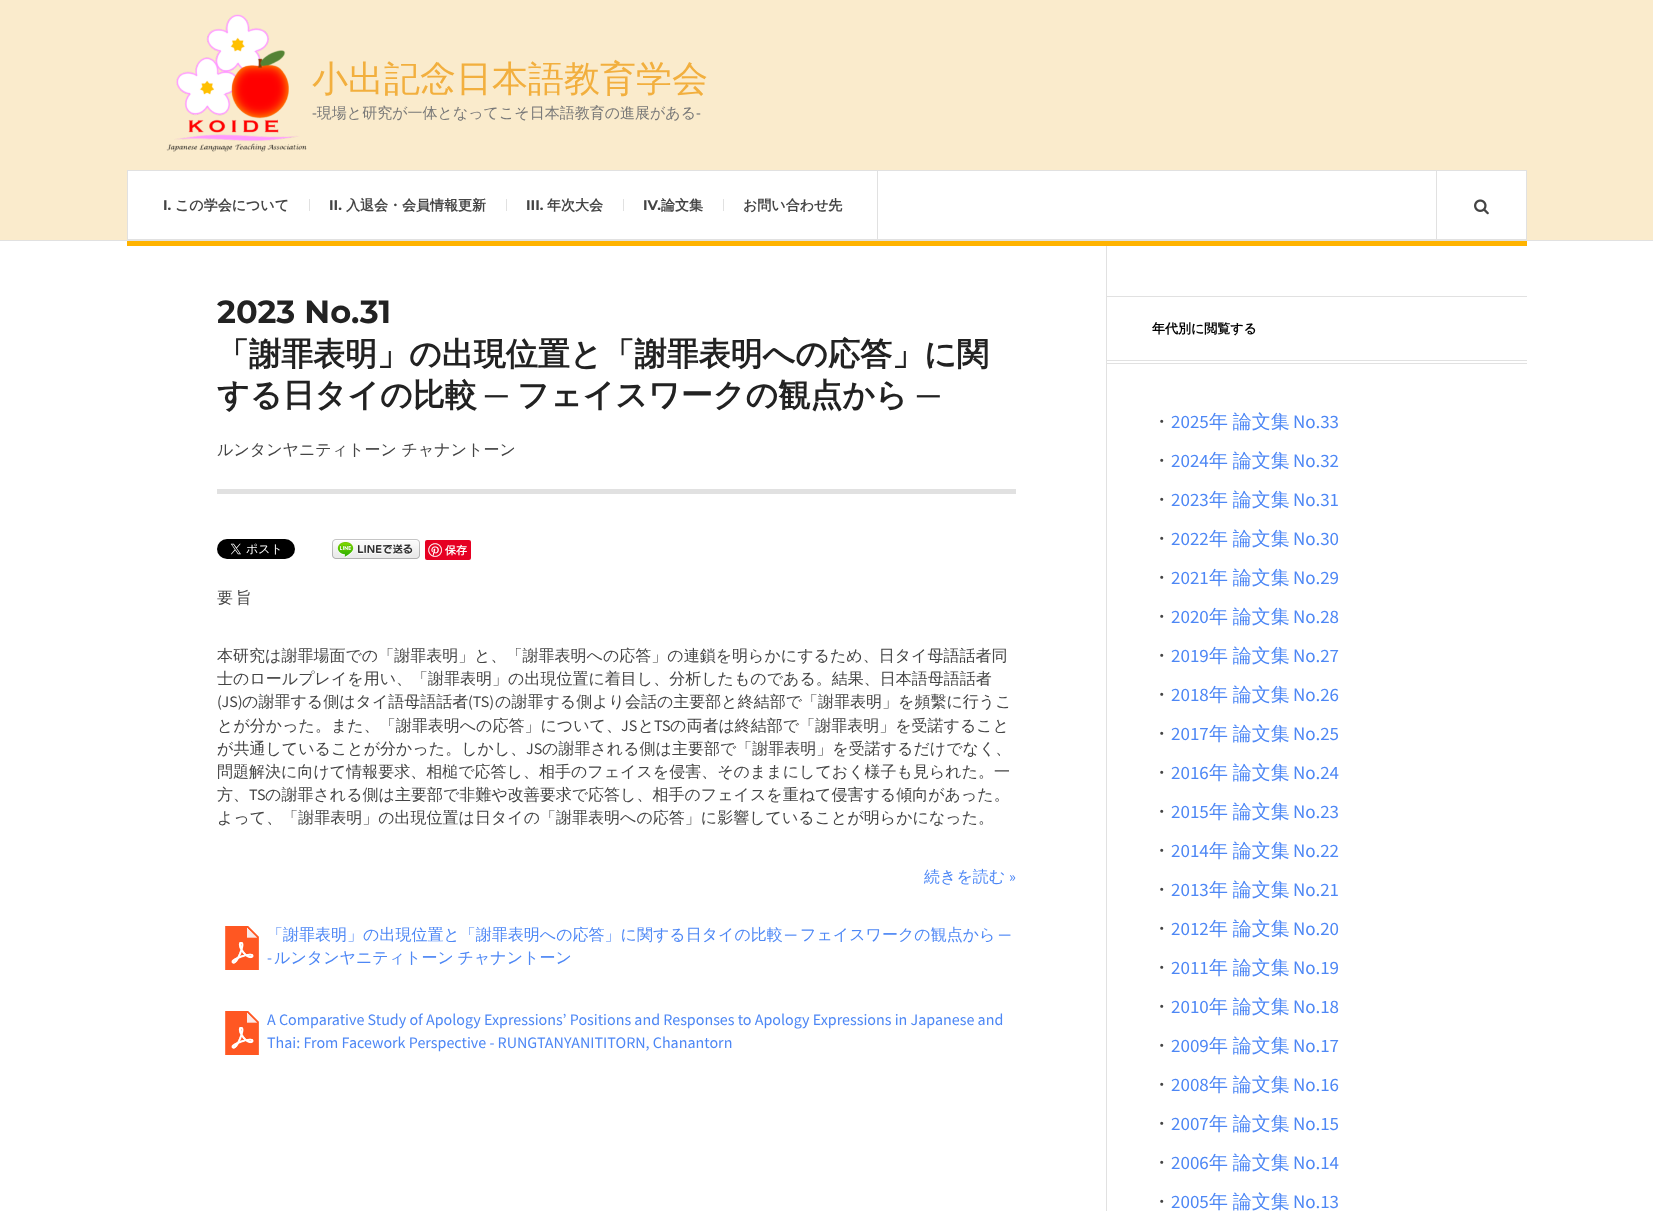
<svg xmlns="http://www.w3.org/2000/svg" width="1653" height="1211">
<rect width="100%" height="100%" fill="#fff"/>
<rect width="1653" height="240" fill="#faebcc"/>
<rect y="240" width="1653" height="1" fill="#e1e1e1"/>
<image x="166" y="14" width="141" height="138" href="media/1.png"/>
<text x="312" y="91" style="font-family:Noto Sans;font-size:36px;font-weight:500;fill:#f2af3e">小出記念日本語教育学会</text>
<text x="312" y="118" style="font-family:Noto Sans;font-size:15px;fill:#787878">-現場と研究が一体となってこそ日本語教育の進展がある-</text>
<rect x="127.5" y="170.5" width="1399" height="69" fill="#fff" stroke="#e1e1e1"/>
<rect x="877" y="171" width="1" height="68" fill="#e1e1e1"/>
<text x="163" y="210" style="font-family:Montserrat;font-size:14px;font-weight:bold;fill:#444">I.</text>
<text x="175" y="210" style="font-family:WenQuanYi Zen Hei;font-size:14px;font-weight:bold;fill:#444">この学会について</text>
<rect x="309" y="199" width="1" height="12" fill="#e1e1e1"/>
<text x="329" y="210" style="font-family:Montserrat;font-size:14px;font-weight:bold;fill:#444">II.</text>
<text x="346" y="210" style="font-family:WenQuanYi Zen Hei;font-size:14px;font-weight:bold;fill:#444">入退会・会員情報更新</text>
<rect x="506" y="199" width="1" height="12" fill="#e1e1e1"/>
<text x="526" y="210" style="font-family:Montserrat;font-size:14px;font-weight:bold;fill:#444">III.</text>
<text x="547" y="210" style="font-family:WenQuanYi Zen Hei;font-size:14px;font-weight:bold;fill:#444">年次大会</text>
<rect x="623" y="199" width="1" height="12" fill="#e1e1e1"/>
<text x="643" y="210" style="font-family:Montserrat;font-size:14px;font-weight:bold;fill:#444">IV.</text>
<text x="661" y="210" style="font-family:WenQuanYi Zen Hei;font-size:14px;font-weight:bold;fill:#444">論文集</text>
<rect x="723" y="199" width="1" height="12" fill="#e1e1e1"/>
<text x="743" y="210" style="font-family:WenQuanYi Zen Hei;font-size:14px;font-weight:bold;fill:#444">お問い合わせ先</text>
<rect x="1436" y="171" width="1" height="68" fill="#e1e1e1"/>
<image x="1474" y="199" width="15" height="16" href="media/2.png"/>
<rect x="127" y="241" width="1400" height="5" fill="#ffb300"/>
<text x="217" y="323" style="font-family:Montserrat;font-size:32px;font-weight:bold;fill:#222">2023 No.31</text>
<text x="217" y="365" style="font-family:WenQuanYi Zen Hei;font-size:32px;font-weight:bold;fill:#222">「謝罪表明」の出現位置と「謝罪表明への応答」に関</text>
<text x="217" y="406" style="font-family:WenQuanYi Zen Hei;font-size:32px;font-weight:bold;fill:#222">する日タイの比較</text>
<text x="485" y="406" style="font-family:Liberation Sans;font-size:32px;font-weight:bold;fill:#222">─</text>
<text x="517" y="406" style="font-family:WenQuanYi Zen Hei;font-size:32px;font-weight:bold;fill:#222">フェイスワークの観点から</text>
<text x="917" y="406" style="font-family:Liberation Sans;font-size:32px;font-weight:bold;fill:#222">─</text>
<text x="217" y="455" style="font-family:WenQuanYi Zen Hei;font-size:16px;font-weight:500;fill:#444">ルンタンヤニティトーン チャナントーン</text>
<rect x="217" y="489" width="799" height="5" fill="#e1e1e1"/>
<image x="217" y="539" width="78" height="20" href="media/3.png"/>
<image x="332" y="539" width="88" height="20" href="media/4.png"/>
<rect x="425" y="540" width="46" height="20" rx="2" fill="#e60023"/>
<image x="428" y="543" width="14" height="14" href="media/5.png"/>
<text x="445" y="554" style="font-family:WenQuanYi Zen Hei;font-size:11px;font-weight:bold;fill:#fff">保存</text>
<text x="217" y="603" word-spacing="-2" style="font-family:WenQuanYi Zen Hei;font-size:16px;font-weight:500;fill:#444">要 旨</text>
<text x="217" y="661" style="font-family:WenQuanYi Zen Hei;font-size:16px;font-weight:500;fill:#444">本研究は謝罪場面での「謝罪表明」と、「謝罪表明への応答」の連鎖を明らかにするため、日タイ母語話者同</text>
<text x="217" y="684" style="font-family:WenQuanYi Zen Hei;font-size:16px;font-weight:500;fill:#444">士のロールプレイを用い、「謝罪表明」の出現位置に着目し、分析したものである。結果、日本語母語話者</text>
<text x="217" y="707" style="font-family:Source Sans Pro;font-size:16px;fill:#444">(JS)</text>
<text x="242" y="707" style="font-family:WenQuanYi Zen Hei;font-size:16px;font-weight:500;fill:#444">の謝罪する側はタイ語母語話者</text>
<text x="468" y="707" style="font-family:Source Sans Pro;font-size:16px;fill:#444">(TS)</text>
<text x="495" y="707" style="font-family:WenQuanYi Zen Hei;font-size:16px;font-weight:500;fill:#444">の謝罪する側より会話の主要部と終結部で「謝罪表明」を頻繫に行うこ</text>
<text x="217" y="731" style="font-family:WenQuanYi Zen Hei;font-size:16px;font-weight:500;fill:#444">とが分かった。また、「謝罪表明への応答」について、</text>
<text x="621" y="731" style="font-family:Source Sans Pro;font-size:16px;fill:#444">JS</text>
<text x="638" y="731" style="font-family:WenQuanYi Zen Hei;font-size:16px;font-weight:500;fill:#444">と</text>
<text x="654" y="731" style="font-family:Source Sans Pro;font-size:16px;fill:#444">TS</text>
<text x="670" y="731" style="font-family:WenQuanYi Zen Hei;font-size:16px;font-weight:500;fill:#444">の両者は終結部で「謝罪表明」を受諾すること</text>
<text x="217" y="754" style="font-family:WenQuanYi Zen Hei;font-size:16px;font-weight:500;fill:#444">が共通していることが分かった。しかし、</text>
<text x="526" y="754" style="font-family:Source Sans Pro;font-size:16px;fill:#444">JS</text>
<text x="542" y="754" style="font-family:WenQuanYi Zen Hei;font-size:16px;font-weight:500;fill:#444">の謝罪される側は主要部で「謝罪表明」を受諾するだけでなく、</text>
<text x="217" y="777" style="font-family:WenQuanYi Zen Hei;font-size:16px;font-weight:500;fill:#444">問題解決に向けて情報要求、相槌で応答し、相手のフェイスを侵害、そのままにしておく様子も見られた。一</text>
<text x="217" y="800" style="font-family:WenQuanYi Zen Hei;font-size:16px;font-weight:500;fill:#444">方、</text>
<text x="249" y="800" style="font-family:Source Sans Pro;font-size:16px;fill:#444">TS</text>
<text x="265" y="800" style="font-family:WenQuanYi Zen Hei;font-size:16px;font-weight:500;fill:#444">の謝罪される側は主要部で非難や改善要求で応答し、相手のフェイスを重ねて侵害する傾向があった。</text>
<text x="217" y="823" style="font-family:WenQuanYi Zen Hei;font-size:16px;font-weight:500;fill:#444">よって、「謝罪表明」の出現位置は日タイの「謝罪表明への応答」に影響していることが明らかになった。</text>
<text x="924" y="882" style="font-family:WenQuanYi Zen Hei;font-size:16px;font-weight:500;fill:#4d87f5">続きを読む</text>
<text x="1009" y="882" style="font-family:Source Sans Pro;font-size:16px;fill:#4d87f5">»</text>
<image x="225" y="926" width="34" height="44" href="media/6.png"/>
<text x="267" y="940" style="font-family:WenQuanYi Zen Hei;font-size:16px;font-weight:500;fill:#4d87f5">「謝罪表明」の出現位置と「謝罪表明への応答」に関する日タイの比較</text>
<text x="785" y="940" style="font-family:Liberation Sans;font-size:16px;fill:#4d87f5">─</text>
<text x="800" y="940" style="font-family:WenQuanYi Zen Hei;font-size:16px;font-weight:500;fill:#4d87f5">フェイスワークの観点から</text>
<text x="999" y="940" style="font-family:Liberation Sans;font-size:16px;fill:#4d87f5">─</text>
<text x="267" y="963" style="font-family:Source Sans Pro;font-size:16px;fill:#4d87f5">-</text>
<text x="274" y="963" word-spacing="-1" style="font-family:WenQuanYi Zen Hei;font-size:16px;font-weight:500;fill:#4d87f5">ルンタンヤニティトーン チャナントーン</text>
<image x="225" y="1011" width="34" height="44" href="media/6.png"/>
<text x="267" y="1025" style="font-family:Source Sans Pro;font-size:16px;fill:#4d87f5">A Comparative Study of Apology Expressions’ Positions and Responses to Apology Expressions in Japanese and</text>
<text x="267" y="1048" style="font-family:Source Sans Pro;font-size:16px;fill:#4d87f5">Thai: From Facework Perspective - RUNGTANYANITITORN, Chanantorn</text>
<rect x="1106" y="246" width="1" height="965" fill="#e1e1e1"/>
<rect x="1107" y="296" width="420" height="1" fill="#e1e1e1"/>
<rect x="1107" y="360" width="420" height="1" fill="#e1e1e1"/>
<rect x="1107" y="363" width="420" height="1" fill="#e1e1e1"/>
<text x="1152" y="333" style="font-family:WenQuanYi Zen Hei;font-size:13px;font-weight:bold;fill:#000">年代別に閲覧する</text>
<text x="1152" y="428" style="font-family:WenQuanYi Zen Hei;font-size:19px;font-weight:500;fill:#444">・</text>
<text x="1171" y="428" style="font-family:Source Sans Pro;font-size:19px;fill:#4d87f5">2025</text>
<text x="1209" y="428" word-spacing="-1" style="font-family:WenQuanYi Zen Hei;font-size:19px;font-weight:500;fill:#4d87f5">年 論文集</text>
<text x="1293" y="428" style="font-family:Source Sans Pro;font-size:19px;fill:#4d87f5">No.33</text>
<text x="1152" y="467" style="font-family:WenQuanYi Zen Hei;font-size:19px;font-weight:500;fill:#444">・</text>
<text x="1171" y="467" style="font-family:Source Sans Pro;font-size:19px;fill:#4d87f5">2024</text>
<text x="1209" y="467" word-spacing="-1" style="font-family:WenQuanYi Zen Hei;font-size:19px;font-weight:500;fill:#4d87f5">年 論文集</text>
<text x="1293" y="467" style="font-family:Source Sans Pro;font-size:19px;fill:#4d87f5">No.32</text>
<text x="1152" y="506" style="font-family:WenQuanYi Zen Hei;font-size:19px;font-weight:500;fill:#444">・</text>
<text x="1171" y="506" style="font-family:Source Sans Pro;font-size:19px;fill:#4d87f5">2023</text>
<text x="1209" y="506" word-spacing="-1" style="font-family:WenQuanYi Zen Hei;font-size:19px;font-weight:500;fill:#4d87f5">年 論文集</text>
<text x="1293" y="506" style="font-family:Source Sans Pro;font-size:19px;fill:#4d87f5">No.31</text>
<text x="1152" y="545" style="font-family:WenQuanYi Zen Hei;font-size:19px;font-weight:500;fill:#444">・</text>
<text x="1171" y="545" style="font-family:Source Sans Pro;font-size:19px;fill:#4d87f5">2022</text>
<text x="1209" y="545" word-spacing="-1" style="font-family:WenQuanYi Zen Hei;font-size:19px;font-weight:500;fill:#4d87f5">年 論文集</text>
<text x="1293" y="545" style="font-family:Source Sans Pro;font-size:19px;fill:#4d87f5">No.30</text>
<text x="1152" y="584" style="font-family:WenQuanYi Zen Hei;font-size:19px;font-weight:500;fill:#444">・</text>
<text x="1171" y="584" style="font-family:Source Sans Pro;font-size:19px;fill:#4d87f5">2021</text>
<text x="1209" y="584" word-spacing="-1" style="font-family:WenQuanYi Zen Hei;font-size:19px;font-weight:500;fill:#4d87f5">年 論文集</text>
<text x="1293" y="584" style="font-family:Source Sans Pro;font-size:19px;fill:#4d87f5">No.29</text>
<text x="1152" y="623" style="font-family:WenQuanYi Zen Hei;font-size:19px;font-weight:500;fill:#444">・</text>
<text x="1171" y="623" style="font-family:Source Sans Pro;font-size:19px;fill:#4d87f5">2020</text>
<text x="1209" y="623" word-spacing="-1" style="font-family:WenQuanYi Zen Hei;font-size:19px;font-weight:500;fill:#4d87f5">年 論文集</text>
<text x="1293" y="623" style="font-family:Source Sans Pro;font-size:19px;fill:#4d87f5">No.28</text>
<text x="1152" y="662" style="font-family:WenQuanYi Zen Hei;font-size:19px;font-weight:500;fill:#444">・</text>
<text x="1171" y="662" style="font-family:Source Sans Pro;font-size:19px;fill:#4d87f5">2019</text>
<text x="1209" y="662" word-spacing="-1" style="font-family:WenQuanYi Zen Hei;font-size:19px;font-weight:500;fill:#4d87f5">年 論文集</text>
<text x="1293" y="662" style="font-family:Source Sans Pro;font-size:19px;fill:#4d87f5">No.27</text>
<text x="1152" y="701" style="font-family:WenQuanYi Zen Hei;font-size:19px;font-weight:500;fill:#444">・</text>
<text x="1171" y="701" style="font-family:Source Sans Pro;font-size:19px;fill:#4d87f5">2018</text>
<text x="1209" y="701" word-spacing="-1" style="font-family:WenQuanYi Zen Hei;font-size:19px;font-weight:500;fill:#4d87f5">年 論文集</text>
<text x="1293" y="701" style="font-family:Source Sans Pro;font-size:19px;fill:#4d87f5">No.26</text>
<text x="1152" y="740" style="font-family:WenQuanYi Zen Hei;font-size:19px;font-weight:500;fill:#444">・</text>
<text x="1171" y="740" style="font-family:Source Sans Pro;font-size:19px;fill:#4d87f5">2017</text>
<text x="1209" y="740" word-spacing="-1" style="font-family:WenQuanYi Zen Hei;font-size:19px;font-weight:500;fill:#4d87f5">年 論文集</text>
<text x="1293" y="740" style="font-family:Source Sans Pro;font-size:19px;fill:#4d87f5">No.25</text>
<text x="1152" y="779" style="font-family:WenQuanYi Zen Hei;font-size:19px;font-weight:500;fill:#444">・</text>
<text x="1171" y="779" style="font-family:Source Sans Pro;font-size:19px;fill:#4d87f5">2016</text>
<text x="1209" y="779" word-spacing="-1" style="font-family:WenQuanYi Zen Hei;font-size:19px;font-weight:500;fill:#4d87f5">年 論文集</text>
<text x="1293" y="779" style="font-family:Source Sans Pro;font-size:19px;fill:#4d87f5">No.24</text>
<text x="1152" y="818" style="font-family:WenQuanYi Zen Hei;font-size:19px;font-weight:500;fill:#444">・</text>
<text x="1171" y="818" style="font-family:Source Sans Pro;font-size:19px;fill:#4d87f5">2015</text>
<text x="1209" y="818" word-spacing="-1" style="font-family:WenQuanYi Zen Hei;font-size:19px;font-weight:500;fill:#4d87f5">年 論文集</text>
<text x="1293" y="818" style="font-family:Source Sans Pro;font-size:19px;fill:#4d87f5">No.23</text>
<text x="1152" y="857" style="font-family:WenQuanYi Zen Hei;font-size:19px;font-weight:500;fill:#444">・</text>
<text x="1171" y="857" style="font-family:Source Sans Pro;font-size:19px;fill:#4d87f5">2014</text>
<text x="1209" y="857" word-spacing="-1" style="font-family:WenQuanYi Zen Hei;font-size:19px;font-weight:500;fill:#4d87f5">年 論文集</text>
<text x="1293" y="857" style="font-family:Source Sans Pro;font-size:19px;fill:#4d87f5">No.22</text>
<text x="1152" y="896" style="font-family:WenQuanYi Zen Hei;font-size:19px;font-weight:500;fill:#444">・</text>
<text x="1171" y="896" style="font-family:Source Sans Pro;font-size:19px;fill:#4d87f5">2013</text>
<text x="1209" y="896" word-spacing="-1" style="font-family:WenQuanYi Zen Hei;font-size:19px;font-weight:500;fill:#4d87f5">年 論文集</text>
<text x="1293" y="896" style="font-family:Source Sans Pro;font-size:19px;fill:#4d87f5">No.21</text>
<text x="1152" y="935" style="font-family:WenQuanYi Zen Hei;font-size:19px;font-weight:500;fill:#444">・</text>
<text x="1171" y="935" style="font-family:Source Sans Pro;font-size:19px;fill:#4d87f5">2012</text>
<text x="1209" y="935" word-spacing="-1" style="font-family:WenQuanYi Zen Hei;font-size:19px;font-weight:500;fill:#4d87f5">年 論文集</text>
<text x="1293" y="935" style="font-family:Source Sans Pro;font-size:19px;fill:#4d87f5">No.20</text>
<text x="1152" y="974" style="font-family:WenQuanYi Zen Hei;font-size:19px;font-weight:500;fill:#444">・</text>
<text x="1171" y="974" style="font-family:Source Sans Pro;font-size:19px;fill:#4d87f5">2011</text>
<text x="1209" y="974" word-spacing="-1" style="font-family:WenQuanYi Zen Hei;font-size:19px;font-weight:500;fill:#4d87f5">年 論文集</text>
<text x="1293" y="974" style="font-family:Source Sans Pro;font-size:19px;fill:#4d87f5">No.19</text>
<text x="1152" y="1013" style="font-family:WenQuanYi Zen Hei;font-size:19px;font-weight:500;fill:#444">・</text>
<text x="1171" y="1013" style="font-family:Source Sans Pro;font-size:19px;fill:#4d87f5">2010</text>
<text x="1209" y="1013" word-spacing="-1" style="font-family:WenQuanYi Zen Hei;font-size:19px;font-weight:500;fill:#4d87f5">年 論文集</text>
<text x="1293" y="1013" style="font-family:Source Sans Pro;font-size:19px;fill:#4d87f5">No.18</text>
<text x="1152" y="1052" style="font-family:WenQuanYi Zen Hei;font-size:19px;font-weight:500;fill:#444">・</text>
<text x="1171" y="1052" style="font-family:Source Sans Pro;font-size:19px;fill:#4d87f5">2009</text>
<text x="1209" y="1052" word-spacing="-1" style="font-family:WenQuanYi Zen Hei;font-size:19px;font-weight:500;fill:#4d87f5">年 論文集</text>
<text x="1293" y="1052" style="font-family:Source Sans Pro;font-size:19px;fill:#4d87f5">No.17</text>
<text x="1152" y="1091" style="font-family:WenQuanYi Zen Hei;font-size:19px;font-weight:500;fill:#444">・</text>
<text x="1171" y="1091" style="font-family:Source Sans Pro;font-size:19px;fill:#4d87f5">2008</text>
<text x="1209" y="1091" word-spacing="-1" style="font-family:WenQuanYi Zen Hei;font-size:19px;font-weight:500;fill:#4d87f5">年 論文集</text>
<text x="1293" y="1091" style="font-family:Source Sans Pro;font-size:19px;fill:#4d87f5">No.16</text>
<text x="1152" y="1130" style="font-family:WenQuanYi Zen Hei;font-size:19px;font-weight:500;fill:#444">・</text>
<text x="1171" y="1130" style="font-family:Source Sans Pro;font-size:19px;fill:#4d87f5">2007</text>
<text x="1209" y="1130" word-spacing="-1" style="font-family:WenQuanYi Zen Hei;font-size:19px;font-weight:500;fill:#4d87f5">年 論文集</text>
<text x="1293" y="1130" style="font-family:Source Sans Pro;font-size:19px;fill:#4d87f5">No.15</text>
<text x="1152" y="1169" style="font-family:WenQuanYi Zen Hei;font-size:19px;font-weight:500;fill:#444">・</text>
<text x="1171" y="1169" style="font-family:Source Sans Pro;font-size:19px;fill:#4d87f5">2006</text>
<text x="1209" y="1169" word-spacing="-1" style="font-family:WenQuanYi Zen Hei;font-size:19px;font-weight:500;fill:#4d87f5">年 論文集</text>
<text x="1293" y="1169" style="font-family:Source Sans Pro;font-size:19px;fill:#4d87f5">No.14</text>
<text x="1152" y="1208" style="font-family:WenQuanYi Zen Hei;font-size:19px;font-weight:500;fill:#444">・</text>
<text x="1171" y="1208" style="font-family:Source Sans Pro;font-size:19px;fill:#4d87f5">2005</text>
<text x="1209" y="1208" word-spacing="-1" style="font-family:WenQuanYi Zen Hei;font-size:19px;font-weight:500;fill:#4d87f5">年 論文集</text>
<text x="1293" y="1208" style="font-family:Source Sans Pro;font-size:19px;fill:#4d87f5">No.13</text>
</svg>
